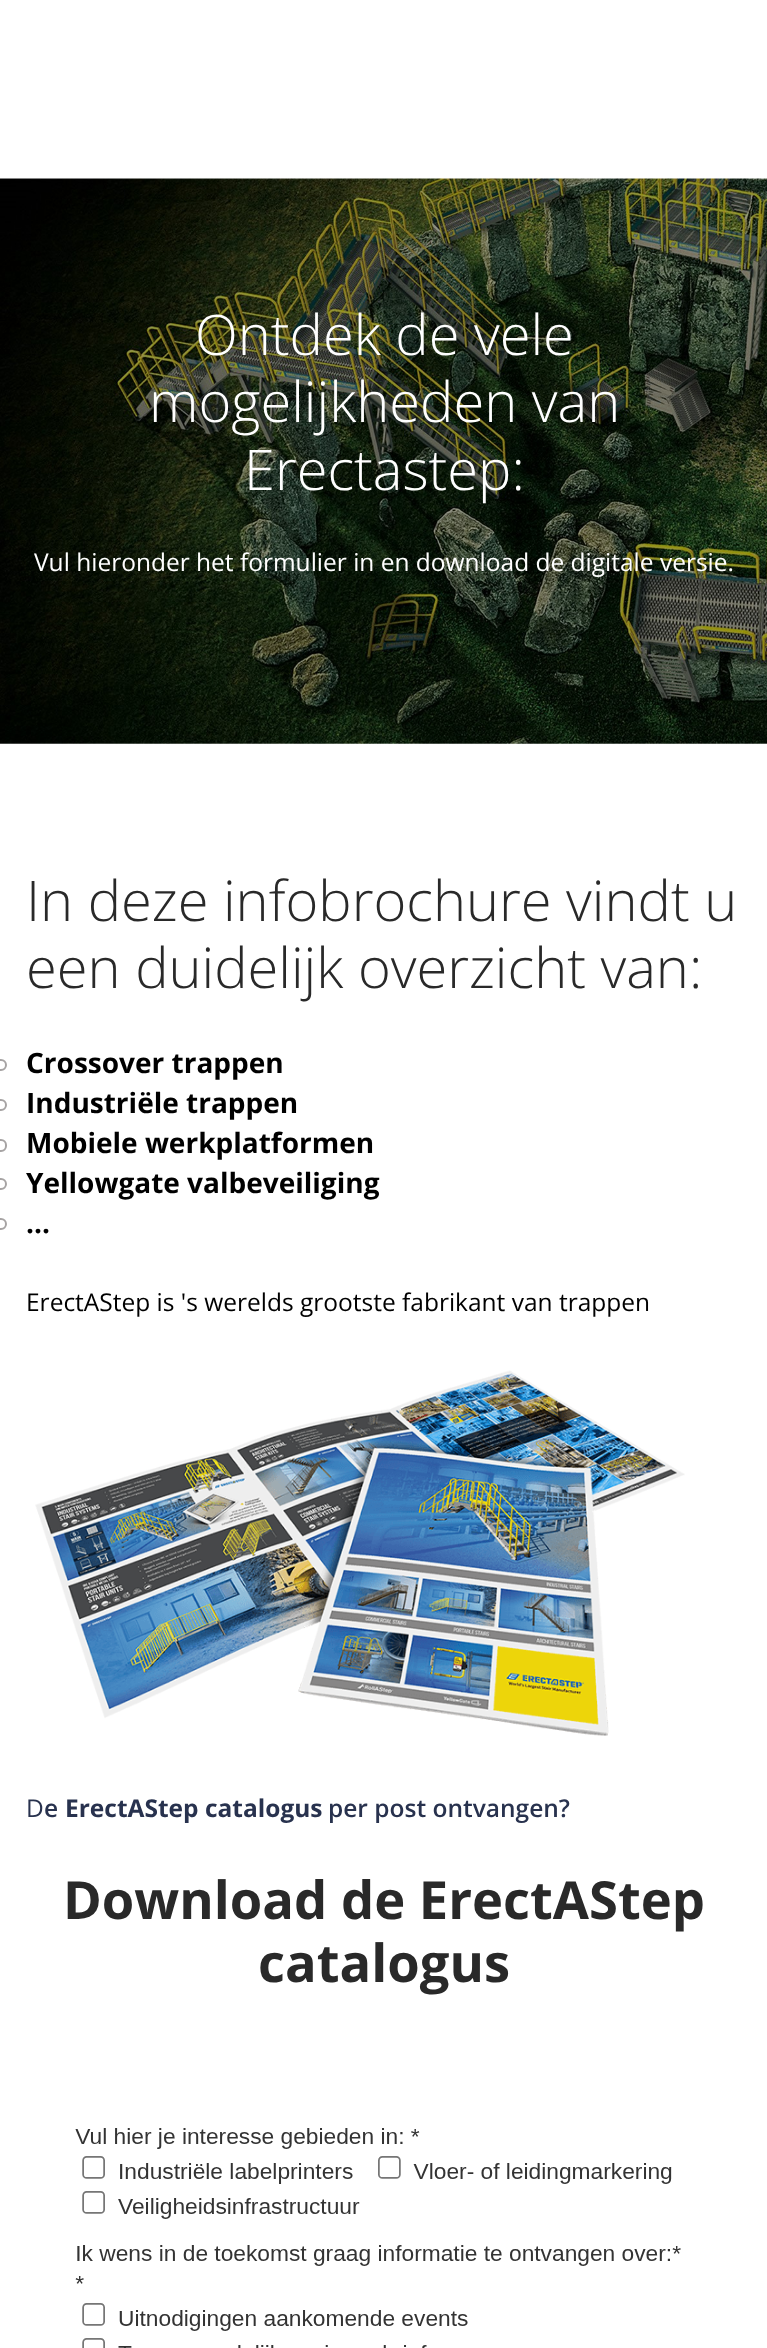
<svg xmlns="http://www.w3.org/2000/svg" width="767" height="2348">
<rect width="100%" height="100%" fill="#fff"/>
<image x="0" y="178" width="767" height="566" href="media/1.png"/>
<text x="195" y="355" style="font-family:Open Sans;font-size:56px;font-weight:300;fill:#fff">Ontdek de vele</text>
<text x="149" y="422" style="font-family:Open Sans;font-size:56px;font-weight:300;fill:#fff">mogelijkheden van</text>
<text x="244" y="490" style="font-family:Open Sans;font-size:56px;font-weight:300;fill:#fff">Erectastep:</text>
<text x="34" y="571" style="font-family:Open Sans;font-size:24.5px;fill:#fff">Vul hieronder het formulier in en download de digitale versie.</text>
<text x="26" y="921" style="font-family:Open Sans;font-size:56px;font-weight:300;fill:#292929">In deze infobrochure vindt u</text>
<text x="26" y="988" style="font-family:Open Sans;font-size:56px;font-weight:300;fill:#292929">een duidelijk overzicht van:</text>
<circle cx="1" cy="1065" r="5" fill="none" stroke="#a7a4a4" stroke-width="2"/>
<text x="26" y="1073" style="font-family:Open Sans;font-size:28px;font-weight:bold;fill:#000">Crossover trappen</text>
<circle cx="1" cy="1105" r="5" fill="none" stroke="#a7a4a4" stroke-width="2"/>
<text x="26" y="1113" style="font-family:Open Sans;font-size:28px;font-weight:bold;fill:#000">Industriële trappen</text>
<rect x="-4" y="1140" width="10" height="11" rx="5" fill="none" stroke="#a7a4a4" stroke-width="2"/>
<text x="26" y="1153" style="font-family:Open Sans;font-size:28px;font-weight:bold;fill:#000">Mobiele werkplatformen</text>
<circle cx="1" cy="1184" r="5" fill="none" stroke="#a7a4a4" stroke-width="2"/>
<text x="26" y="1193" style="font-family:Open Sans;font-size:28px;font-weight:bold;fill:#000">Yellowgate valbeveiliging</text>
<circle cx="1" cy="1224" r="5" fill="none" stroke="#a7a4a4" stroke-width="2"/>
<text x="26" y="1233" style="font-family:Open Sans;font-size:28px;font-weight:bold;fill:#000">...</text>
<text x="26" y="1311" style="font-family:Open Sans;font-size:24.5px;fill:#000">ErectAStep is 's werelds grootste fabrikant van trappen</text>
<image x="35" y="1370" width="650" height="366" href="media/2.png"/>
<text x="26" y="1817" style="font-family:Open Sans;font-size:24.5px;fill:#28324e">D</text>
<text x="44" y="1817" style="font-family:Open Sans;font-size:24.5px;font-weight:600;fill:#28324e">e</text>
<text x="65" y="1817" style="font-family:Open Sans;font-size:24.5px;font-weight:bold;fill:#28324e">ErectAStep catalogus</text>
<text x="328" y="1817" style="font-family:Open Sans;font-size:24.5px;font-weight:600;fill:#28324e">per post ontvangen?</text>
<text x="63" y="1919" style="font-family:Open Sans;font-size:52.5px;font-weight:bold;fill:#292929">Download de ErectAStep</text>
<text x="258" y="1982" style="font-family:Open Sans;font-size:52.5px;font-weight:bold;fill:#292929">catalogus</text>
<image x="75" y="2128" width="606" height="220" href="media/3.png"/>
</svg>
